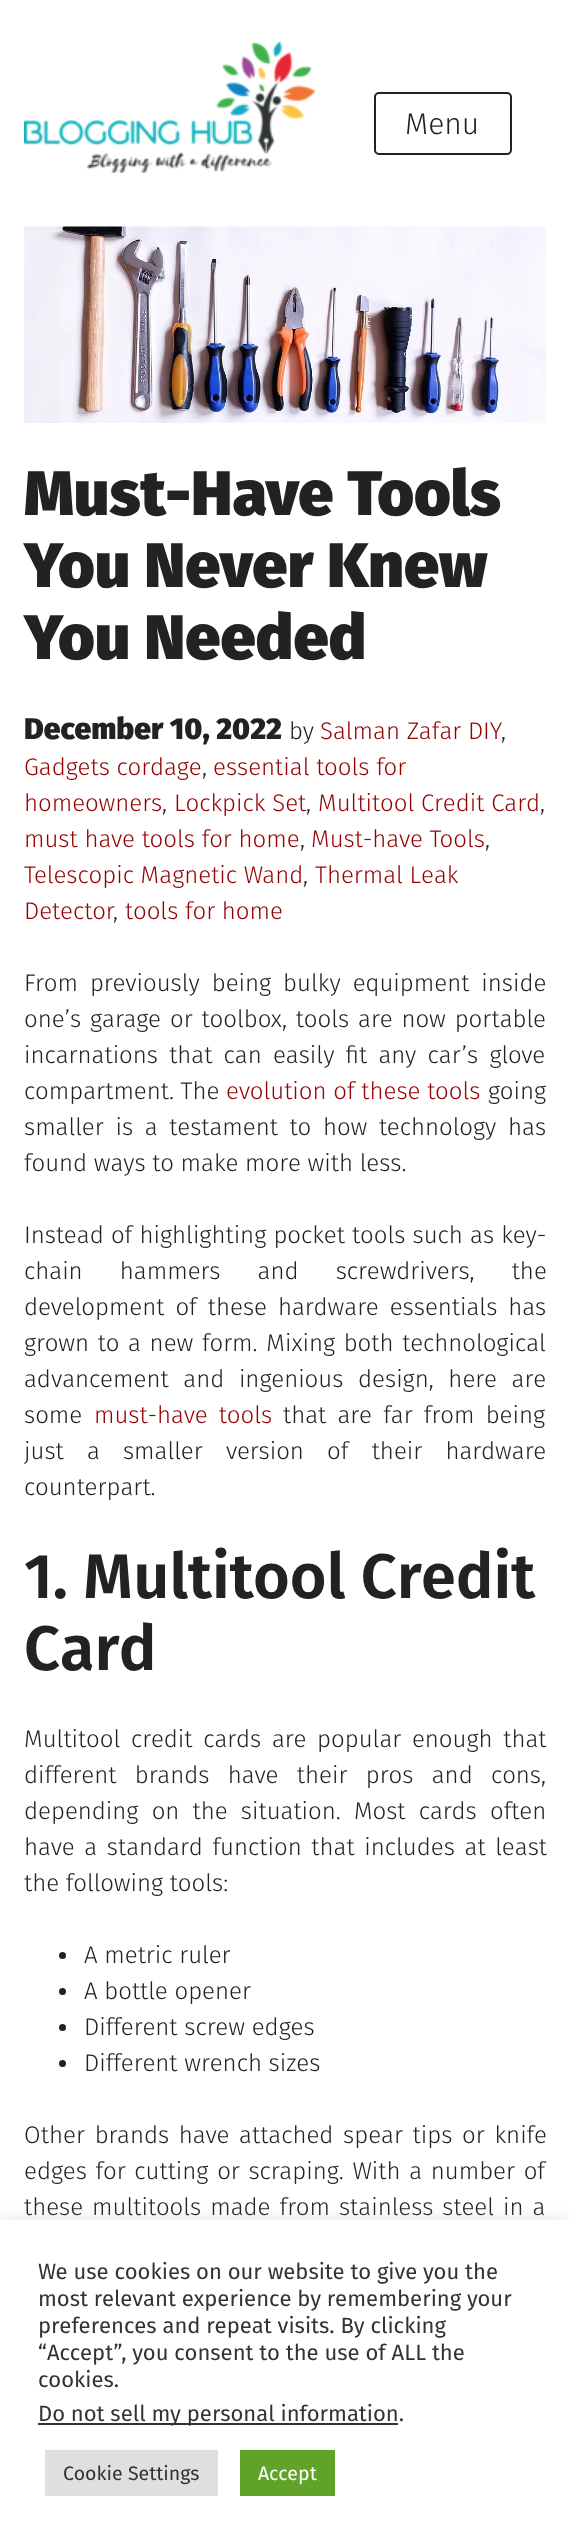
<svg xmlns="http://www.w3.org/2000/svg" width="569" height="2541">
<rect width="100%" height="100%" fill="#fff"/>
<image x="24" y="42" width="291" height="131" href="media/1.png"/>
<rect x="375" y="93" width="136" height="61" rx="4" fill="none" stroke="#222" stroke-width="2"/>
<text x="405" y="134" style="font-family:Fira Sans;font-size:30px;font-weight:300;fill:#222">Menu</text>
<image x="24" y="226" width="522" height="197" href="media/2.png"/>
<text x="24" y="515" style="font-family:Fira Sans;font-size:63px;font-weight:900;fill:#222">Must-Have Tools</text>
<text x="24" y="587" style="font-family:Fira Sans;font-size:63px;font-weight:900;fill:#222">You Never Knew</text>
<text x="24" y="659" style="font-family:Fira Sans;font-size:63px;font-weight:900;fill:#222">You Needed</text>
<text x="24" y="739" style="font-family:Fira Sans;font-size:30px;font-weight:900;fill:#222">December 10, 2022</text>
<text x="289" y="739" style="font-family:Fira Sans;font-size:24px;font-weight:300;fill:#222">by</text>
<text x="320" y="739" style="font-family:Fira Sans;font-size:24px;font-weight:300;fill:#940000">Salman Zafar DIY</text>
<text x="501" y="739" style="font-family:Fira Sans;font-size:24px;font-weight:300;fill:#222">,</text>
<text x="24" y="775" style="font-family:Fira Sans;font-size:24px;font-weight:300;fill:#940000">Gadgets cordage</text>
<text x="202" y="775" style="font-family:Fira Sans;font-size:24px;font-weight:300;fill:#222">,</text>
<text x="213" y="775" style="font-family:Fira Sans;font-size:24px;font-weight:300;fill:#940000">essential tools for</text>
<text x="24" y="811" style="font-family:Fira Sans;font-size:24px;font-weight:300;fill:#940000">homeowners</text>
<text x="162" y="811" style="font-family:Fira Sans;font-size:24px;font-weight:300;fill:#222">,</text>
<text x="174" y="811" style="font-family:Fira Sans;font-size:24px;font-weight:300;fill:#940000">Lockpick Set</text>
<text x="306" y="811" style="font-family:Fira Sans;font-size:24px;font-weight:300;fill:#222">,</text>
<text x="318" y="811" style="font-family:Fira Sans;font-size:24px;font-weight:300;fill:#940000">Multitool Credit Card</text>
<text x="540" y="811" style="font-family:Fira Sans;font-size:24px;font-weight:300;fill:#222">,</text>
<text x="24" y="847" style="font-family:Fira Sans;font-size:24px;font-weight:300;fill:#940000">must have tools for home</text>
<text x="300" y="847" style="font-family:Fira Sans;font-size:24px;font-weight:300;fill:#222">,</text>
<text x="311" y="847" style="font-family:Fira Sans;font-size:24px;font-weight:300;fill:#940000">Must-have Tools</text>
<text x="485" y="847" style="font-family:Fira Sans;font-size:24px;font-weight:300;fill:#222">,</text>
<text x="24" y="883" style="font-family:Fira Sans;font-size:24px;font-weight:300;fill:#940000">Telescopic Magnetic Wand</text>
<text x="303" y="883" style="font-family:Fira Sans;font-size:24px;font-weight:300;fill:#222">,</text>
<text x="315" y="883" style="font-family:Fira Sans;font-size:24px;font-weight:300;fill:#940000">Thermal Leak</text>
<text x="24" y="919" style="font-family:Fira Sans;font-size:24px;font-weight:300;fill:#940000">Detector</text>
<text x="113" y="919" style="font-family:Fira Sans;font-size:24px;font-weight:300;fill:#222">,</text>
<text x="125" y="919" style="font-family:Fira Sans;font-size:24px;font-weight:300;fill:#940000">tools for home</text>
<text x="24" y="991" word-spacing="5.25" style="font-family:Fira Sans;font-size:24px;font-weight:300;fill:#222">From previously being bulky equipment inside</text>
<text x="24" y="1027" word-spacing="2.25" style="font-family:Fira Sans;font-size:24px;font-weight:300;fill:#222">one’s garage or toolbox, tools are now portable</text>
<text x="24" y="1063" word-spacing="4.5" style="font-family:Fira Sans;font-size:24px;font-weight:300;fill:#222">incarnations that can easily fit any car’s glove</text>
<text x="24" y="1099" style="font-family:Fira Sans;font-size:24px;font-weight:300;fill:#222">compartment. The</text>
<text x="226" y="1099" style="font-family:Fira Sans;font-size:24px;font-weight:300;fill:#940000">evolution of these tools</text>
<text x="488" y="1099" style="font-family:Fira Sans;font-size:24px;font-weight:300;fill:#222">going</text>
<text x="24" y="1135" word-spacing="5" style="font-family:Fira Sans;font-size:24px;font-weight:300;fill:#222">smaller is a testament to how technology has</text>
<text x="24" y="1171" style="font-family:Fira Sans;font-size:24px;font-weight:300;fill:#222">found ways to make more with less.</text>
<text x="24" y="1243" word-spacing="0.5" style="font-family:Fira Sans;font-size:24px;font-weight:300;fill:#222">Instead of highlighting pocket tools such as key-</text>
<text x="24" y="1279" word-spacing="30.5" style="font-family:Fira Sans;font-size:24px;font-weight:300;fill:#222">chain hammers and screwdrivers, the</text>
<text x="24" y="1315" word-spacing="4.25" style="font-family:Fira Sans;font-size:24px;font-weight:300;fill:#222">development of these hardware essentials has</text>
<text x="24" y="1351" word-spacing="2" style="font-family:Fira Sans;font-size:24px;font-weight:300;fill:#222">grown to a new form. Mixing both technological</text>
<text x="24" y="1387" word-spacing="8" style="font-family:Fira Sans;font-size:24px;font-weight:300;fill:#222">advancement and ingenious design, here are</text>
<text x="24" y="1423" style="font-family:Fira Sans;font-size:24px;font-weight:300;fill:#222">some</text>
<text x="94" y="1423" word-spacing="4.5" style="font-family:Fira Sans;font-size:24px;font-weight:300;fill:#940000">must-have tools</text>
<text x="283" y="1423" word-spacing="4.5" style="font-family:Fira Sans;font-size:24px;font-weight:300;fill:#222">that are far from being</text>
<text x="24" y="1459" word-spacing="16.5" style="font-family:Fira Sans;font-size:24px;font-weight:300;fill:#222">just a smaller version of their hardware</text>
<text x="24" y="1495" style="font-family:Fira Sans;font-size:24px;font-weight:300;fill:#222">counterpart.</text>
<text x="24" y="1598" style="font-family:Fira Sans;font-size:63px;font-weight:600;fill:#222">1. Multitool Credit</text>
<text x="24" y="1670" style="font-family:Fira Sans;font-size:63px;font-weight:600;fill:#222">Card</text>
<text x="24" y="1747" word-spacing="4" style="font-family:Fira Sans;font-size:24px;font-weight:300;fill:#222">Multitool credit cards are popular enough that</text>
<text x="24" y="1783" word-spacing="11.75" style="font-family:Fira Sans;font-size:24px;font-weight:300;fill:#222">different brands have their pros and cons,</text>
<text x="24" y="1819" word-spacing="6.5" style="font-family:Fira Sans;font-size:24px;font-weight:300;fill:#222">depending on the situation. Most cards often</text>
<text x="24" y="1855" word-spacing="3" style="font-family:Fira Sans;font-size:24px;font-weight:300;fill:#222">have a standard function that includes at least</text>
<text x="24" y="1891" style="font-family:Fira Sans;font-size:24px;font-weight:300;fill:#222">the following tools:</text>
<circle cx="62.5" cy="1955.5" r="3.5" fill="#222"/>
<text x="84" y="1963" style="font-family:Fira Sans;font-size:24px;font-weight:300;fill:#222">A metric ruler</text>
<circle cx="62.5" cy="1991.5" r="3.5" fill="#222"/>
<text x="84" y="1999" style="font-family:Fira Sans;font-size:24px;font-weight:300;fill:#222">A bottle opener</text>
<circle cx="62.5" cy="2027.5" r="3.5" fill="#222"/>
<text x="84" y="2035" style="font-family:Fira Sans;font-size:24px;font-weight:300;fill:#222">Different screw edges</text>
<circle cx="62.5" cy="2063.5" r="3.5" fill="#222"/>
<text x="84" y="2071" style="font-family:Fira Sans;font-size:24px;font-weight:300;fill:#222">Different wrench sizes</text>
<text x="24" y="2143" word-spacing="3" style="font-family:Fira Sans;font-size:24px;font-weight:300;fill:#222">Other brands have attached spear tips or knife</text>
<text x="24" y="2179" word-spacing="2" style="font-family:Fira Sans;font-size:24px;font-weight:300;fill:#222">edges for cutting or scraping. With a number of</text>
<text x="24" y="2215" word-spacing="2.25" style="font-family:Fira Sans;font-size:24px;font-weight:300;fill:#222">these multitools made from stainless steel in a</text>
<rect y="2219" width="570" height="321" fill="#acabab4d" filter="blur(7.5px)"/>
<rect y="2220" width="569" height="321" fill="#fff"/>
<text x="38" y="2279" style="font-family:Fira Sans;font-size:22px;fill:#333">We use cookies on our website to give you the</text>
<text x="38" y="2306" style="font-family:Fira Sans;font-size:22px;fill:#333">most relevant experience by remembering your</text>
<text x="38" y="2333" style="font-family:Fira Sans;font-size:22px;fill:#333">preferences and repeat visits. By clicking</text>
<text x="38" y="2360" style="font-family:Fira Sans;font-size:22px;fill:#333">“Accept”, you consent to the use of ALL the</text>
<text x="38" y="2387" style="font-family:Fira Sans;font-size:22px;fill:#333">cookies.</text>
<rect x="38" y="2423" width="360" height="2" fill="#333"/>
<text x="38" y="2421" style="font-family:Fira Sans;font-size:22px;fill:#333">Do not sell my personal information.</text>
<rect x="45" y="2450" width="173" height="46" fill="#dedfe0"/>
<text x="63" y="2480" style="font-family:Fira Sans;font-size:19.5px;fill:#333">Cookie Settings</text>
<rect x="240" y="2450" width="95" height="46" fill="#61a229"/>
<text x="258" y="2480" style="font-family:Fira Sans;font-size:19.5px;fill:#fff">Accept</text>
</svg>
